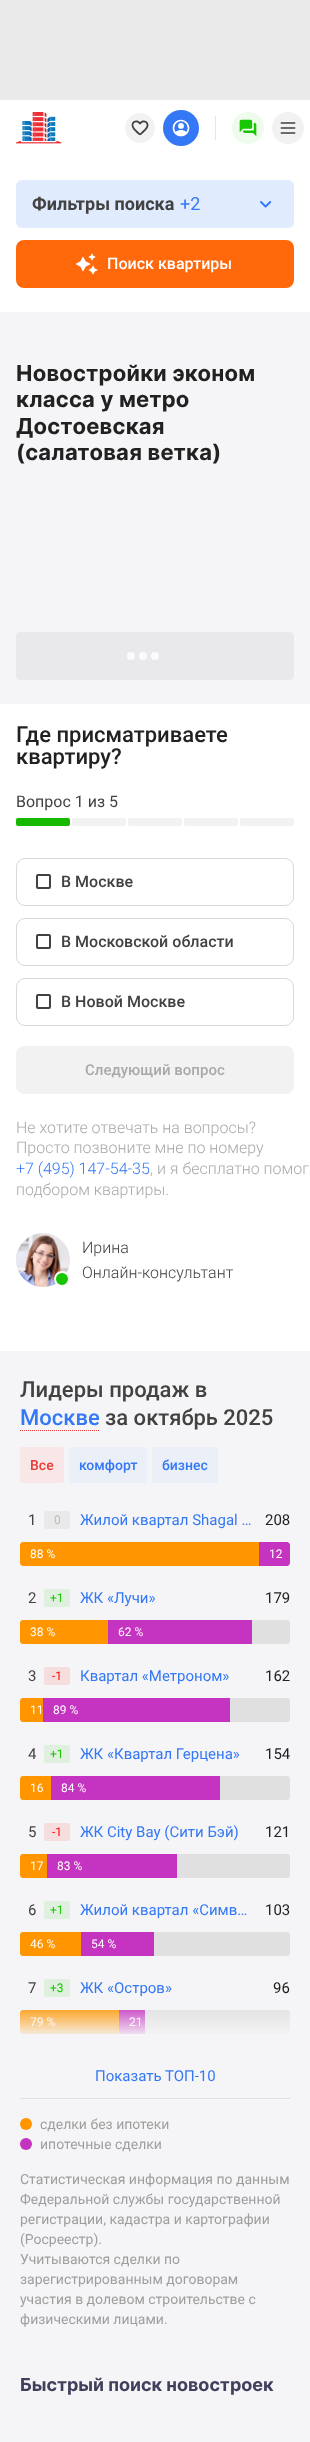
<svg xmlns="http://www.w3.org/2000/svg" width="310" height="2442">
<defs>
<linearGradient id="g1" gradientUnits="userSpaceOnUse" x1="155" y1="2006" x2="155" y2="2054"><stop offset="0" stop-color="#f5f5f7" stop-opacity="0.07"/><stop offset="0.67" stop-color="#f5f5f7"/><stop offset="0.88" stop-color="#f5f5f7"/></linearGradient>
</defs>
<rect width="100%" height="100%" fill="#fff"/>
<rect width="310" height="100" fill="#eaeaea"/>
<image x="16" y="112" width="46" height="32" href="media/1.png"/>
<circle cx="140" cy="128" r="15.5" fill="#f2f2f2" stroke="#fff"/>
<image x="131" y="120" width="18" height="16" href="media/2.png"/>
<circle cx="181" cy="128" r="18" fill="#3478f6"/>
<image x="172" y="119" width="18" height="18" href="media/3.png"/>
<rect x="215" y="116" width="1" height="24" fill="#e6e6e6"/>
<circle cx="248" cy="128" r="16" fill="#effbed"/>
<image x="239" y="119" width="18" height="18" href="media/4.png"/>
<circle cx="288" cy="128" r="16" fill="#f2f2f2"/>
<image x="280" y="122" width="16" height="12" href="media/5.png"/>
<rect x="16" y="180" width="278" height="48" rx="6" fill="#e1ebfe"/>
<text x="32" y="210" style="font-family:Roboto;font-size:18px;font-weight:bold;fill:#424242">Фильтры поиска</text>
<text x="180" y="210" style="font-family:Roboto;font-size:18px;fill:#3478f6">+2</text>
<image x="260" y="201" width="12" height="7" href="media/6.png"/>
<rect x="16" y="240" width="278" height="48" rx="8" fill="#ff680b"/>
<image x="75" y="253" width="23" height="22" href="media/7.png"/>
<text x="107" y="269" style="font-family:Roboto;font-size:16px;font-weight:500;fill:#fff">Поиск квартиры</text>
<rect y="312" width="310" height="392" fill="#f5f5f7"/>
<text x="16" y="381" style="font-family:Inter;font-size:22px;font-weight:bold;letter-spacing:0.25px;fill:#212121">Новостройки эконом</text>
<text x="16" y="407" style="font-family:Inter;font-size:22px;font-weight:bold;letter-spacing:0.25px;fill:#212121">класса у метро</text>
<text x="16" y="434" style="font-family:Inter;font-size:22px;font-weight:bold;letter-spacing:0.25px;fill:#212121">Достоевская</text>
<text x="16" y="460" style="font-family:Inter;font-size:22px;font-weight:bold;letter-spacing:0.25px;fill:#212121">(салатовая ветка)</text>
<rect x="16" y="632" width="278" height="48" rx="4" fill="#e9e9eb"/>
<circle cx="143" cy="656" r="4" fill="#fbfbfb"/>
<circle cx="131" cy="656" r="4" fill="#fbfbfb"/>
<circle cx="155" cy="656" r="4" fill="#fbfbfb"/>
<text x="16" y="742" style="font-family:Roboto;font-size:22px;font-weight:500;fill:#212121">Где присматриваете</text>
<text x="16" y="764" style="font-family:Roboto;font-size:22px;font-weight:500;fill:#212121">квартиру?</text>
<text x="16" y="807" style="font-family:Roboto;font-size:16px;fill:#424242">Вопрос 1 из 5</text>
<rect x="16" y="818" width="54" height="8" rx="2" fill="#16b800"/>
<rect x="72" y="818" width="54" height="8" rx="2" fill="#f2f2f2"/>
<rect x="128" y="818" width="54" height="8" rx="2" fill="#f2f2f2"/>
<rect x="184" y="818" width="54" height="8" rx="2" fill="#f2f2f2"/>
<rect x="240" y="818" width="54" height="8" rx="2" fill="#f2f2f2"/>
<rect x="16.5" y="858.5" width="277" height="47" rx="8.5" fill="none" stroke="#d9d9d9"/>
<rect x="37" y="875" width="13" height="13" rx="1" fill="none" stroke="#424242" stroke-width="2"/>
<text x="61" y="887" style="font-family:Roboto;font-size:16px;font-weight:500;fill:#424242">В Москве</text>
<rect x="16.5" y="918.5" width="277" height="47" rx="8.5" fill="none" stroke="#d9d9d9"/>
<rect x="37" y="935" width="13" height="13" rx="1" fill="none" stroke="#424242" stroke-width="2"/>
<text x="61" y="947" style="font-family:Roboto;font-size:16px;font-weight:500;fill:#424242">В Московской области</text>
<rect x="16.5" y="978.5" width="277" height="47" rx="8.5" fill="none" stroke="#d9d9d9"/>
<rect x="37" y="995" width="13" height="13" rx="1" fill="none" stroke="#424242" stroke-width="2"/>
<text x="61" y="1007" style="font-family:Roboto;font-size:16px;font-weight:500;fill:#424242">В Новой Москве</text>
<rect x="16" y="1046" width="278" height="48" rx="8" fill="#f2f2f2"/>
<text x="85" y="1075" style="font-family:Roboto;font-size:15px;font-weight:500;fill:#a9a9a9">Следующий вопрос</text>
<text x="16" y="1133" style="font-family:Roboto;font-size:16px;font-weight:300;fill:#a9a9a9">Не хотите отвечать на вопросы?</text>
<text x="16" y="1153" style="font-family:Roboto;font-size:16px;font-weight:300;fill:#a9a9a9">Просто позвоните мне по номеру</text>
<text x="16" y="1174" style="font-family:Roboto;font-size:16px;font-weight:300;fill:#3478f6">+7 (495) 147-54-35</text>
<text x="150" y="1174" style="font-family:Roboto;font-size:16px;font-weight:300;fill:#a9a9a9">, и я бесплатно помог</text>
<text x="16" y="1195" style="font-family:Roboto;font-size:16px;font-weight:300;fill:#a9a9a9">подбором квартиры.</text>
<image x="16" y="1233" width="54" height="54" href="media/8.png"/>
<circle cx="62" cy="1279" r="7" fill="#17c500" stroke="#fafafa" stroke-width="2"/>
<text x="82" y="1253" style="font-family:Roboto;font-size:16px;font-weight:300;fill:#424242">Ирина</text>
<text x="82" y="1278" style="font-family:Roboto;font-size:16px;font-weight:300;fill:#424242">Онлайн-консультант</text>
<rect y="1351" width="310" height="1091" fill="#f5f5f7"/>
<text x="20" y="1397" style="font-family:Roboto;font-size:22px;font-weight:500;fill:#424242">Лидеры продаж в</text>
<text x="20" y="1425" style="font-family:Roboto;font-size:22px;font-weight:500;fill:#3478f6">Москве</text>
<path d="M20 1430.5h80" fill="none" stroke="#ea3b38" stroke-dasharray="1 1"/>
<text x="105" y="1425" style="font-family:Roboto;font-size:22px;font-weight:500;fill:#424242">за октябрь 2025</text>
<rect x="20" y="1447" width="44" height="36" rx="2" fill="#f8e7e6"/>
<text x="30" y="1470" style="font-family:Roboto;font-size:14px;font-weight:500;fill:#ea3b38">Все</text>
<rect x="69" y="1447" width="78" height="36" rx="2" fill="#eaeff8"/>
<text x="79" y="1470" style="font-family:Roboto;font-size:14px;font-weight:500;fill:#3478f6">комфорт</text>
<rect x="152" y="1447" width="66" height="36" rx="2" fill="#eaeff8"/>
<text x="162" y="1470" style="font-family:Roboto;font-size:14px;font-weight:500;fill:#3478f6">бизнес</text>
<text x="28" y="1525" style="font-family:Roboto;font-size:15px;fill:#424242">1</text>
<rect x="44" y="1511" width="26" height="18" rx="2" fill="#e9e9ea"/>
<text x="54" y="1524" style="font-family:Roboto;font-size:12px;fill:#bdbdbd">0</text>
<text x="80" y="1525" style="font-family:Roboto;font-size:15px;fill:#3478f6">Жилой квартал Shagal …</text>
<text x="265" y="1525" style="font-family:Roboto;font-size:15px;fill:#212121">208</text>
<path d="M23 1542h236v24h-236c-1.5 0-3-1.5-3-3v-18c0-1.5 1.5-3 3-3z" fill="#ff9600"/>
<text x="30" y="1558" style="font-family:Roboto;font-size:12px;fill:#fff">88 %</text>
<path d="M259 1542h28c1.5 0 3 1.5 3 3v18c0 1.5-1.5 3-3 3h-28z" fill="#c534c0"/>
<text x="269" y="1558" style="font-family:Roboto;font-size:12px;fill:#fff">12</text>
<text x="28" y="1603" style="font-family:Roboto;font-size:15px;fill:#424242">2</text>
<rect x="44" y="1589" width="26" height="18" rx="2" fill="#dff0de"/>
<text x="50" y="1602" style="font-family:Roboto;font-size:12px;fill:#17c500">+1</text>
<text x="80" y="1603" style="font-family:Roboto;font-size:15px;fill:#3478f6">ЖК «Лучи»</text>
<text x="265" y="1603" style="font-family:Roboto;font-size:15px;fill:#212121">179</text>
<rect x="20" y="1620" width="270" height="24" rx="3" fill="#e0e0e0"/>
<path d="M23 1620h85v24h-85c-1.5 0-3-1.5-3-3v-18c0-1.5 1.5-3 3-3z" fill="#ff9600"/>
<text x="30" y="1636" style="font-family:Roboto;font-size:12px;fill:#fff">38 %</text>
<rect x="108" y="1620" width="144" height="24" fill="#c534c0"/>
<text x="118" y="1636" style="font-family:Roboto;font-size:12px;fill:#fff">62 %</text>
<text x="28" y="1681" style="font-family:Roboto;font-size:15px;fill:#424242">3</text>
<rect x="44" y="1667" width="26" height="18" rx="2" fill="#f6ddde"/>
<text x="52" y="1680" style="font-family:Roboto;font-size:12px;fill:#f00">-1</text>
<text x="80" y="1681" style="font-family:Roboto;font-size:15px;fill:#3478f6">Квартал «Метроном»</text>
<text x="265" y="1681" style="font-family:Roboto;font-size:15px;fill:#212121">162</text>
<rect x="20" y="1698" width="270" height="24" rx="3" fill="#e0e0e0"/>
<path d="M23 1698h20v24h-20c-1.5 0-3-1.5-3-3v-18c0-1.5 1.5-3 3-3z" fill="#ff9600"/>
<text x="30" y="1714" style="font-family:Roboto;font-size:12px;fill:#fff">11</text>
<rect x="43" y="1698" width="187" height="24" fill="#c534c0"/>
<text x="53" y="1714" style="font-family:Roboto;font-size:12px;fill:#fff">89 %</text>
<text x="28" y="1759" style="font-family:Roboto;font-size:15px;fill:#424242">4</text>
<rect x="44" y="1745" width="26" height="18" rx="2" fill="#dff0de"/>
<text x="50" y="1758" style="font-family:Roboto;font-size:12px;fill:#17c500">+1</text>
<text x="80" y="1759" style="font-family:Roboto;font-size:15px;fill:#3478f6">ЖК «Квартал Герцена»</text>
<text x="265" y="1759" style="font-family:Roboto;font-size:15px;fill:#212121">154</text>
<rect x="20" y="1776" width="270" height="24" rx="3" fill="#e0e0e0"/>
<path d="M23 1776h28v24h-28c-1.5 0-3-1.5-3-3v-18c0-1.5 1.5-3 3-3z" fill="#ff9600"/>
<text x="30" y="1792" style="font-family:Roboto;font-size:12px;fill:#fff">16</text>
<rect x="51" y="1776" width="169" height="24" fill="#c534c0"/>
<text x="61" y="1792" style="font-family:Roboto;font-size:12px;fill:#fff">84 %</text>
<text x="28" y="1837" style="font-family:Roboto;font-size:15px;fill:#424242">5</text>
<rect x="44" y="1823" width="26" height="18" rx="2" fill="#f6ddde"/>
<text x="52" y="1836" style="font-family:Roboto;font-size:12px;fill:#f00">-1</text>
<text x="80" y="1837" style="font-family:Roboto;font-size:15px;fill:#3478f6">ЖК City Bay (Сити Бэй)</text>
<text x="265" y="1837" style="font-family:Roboto;font-size:15px;fill:#212121">121</text>
<rect x="20" y="1854" width="270" height="24" rx="3" fill="#e0e0e0"/>
<path d="M23 1854h24v24h-24c-1.5 0-3-1.5-3-3v-18c0-1.5 1.5-3 3-3z" fill="#ff9600"/>
<text x="30" y="1870" style="font-family:Roboto;font-size:12px;fill:#fff">17</text>
<rect x="47" y="1854" width="130" height="24" fill="#c534c0"/>
<text x="57" y="1870" style="font-family:Roboto;font-size:12px;fill:#fff">83 %</text>
<text x="28" y="1915" style="font-family:Roboto;font-size:15px;fill:#424242">6</text>
<rect x="44" y="1901" width="26" height="18" rx="2" fill="#dff0de"/>
<text x="50" y="1914" style="font-family:Roboto;font-size:12px;fill:#17c500">+1</text>
<text x="80" y="1915" style="font-family:Roboto;font-size:15px;fill:#3478f6">Жилой квартал «Симв…</text>
<text x="265" y="1915" style="font-family:Roboto;font-size:15px;fill:#212121">103</text>
<rect x="20" y="1932" width="270" height="24" rx="3" fill="#e0e0e0"/>
<path d="M23 1932h58v24h-58c-1.5 0-3-1.5-3-3v-18c0-1.5 1.5-3 3-3z" fill="#ff9600"/>
<text x="30" y="1948" style="font-family:Roboto;font-size:12px;fill:#fff">46 %</text>
<rect x="81" y="1932" width="73" height="24" fill="#c534c0"/>
<text x="91" y="1948" style="font-family:Roboto;font-size:12px;fill:#fff">54 %</text>
<text x="28" y="1993" style="font-family:Roboto;font-size:15px;fill:#424242">7</text>
<rect x="44" y="1979" width="26" height="18" rx="2" fill="#dff0de"/>
<text x="50" y="1992" style="font-family:Roboto;font-size:12px;fill:#17c500">+3</text>
<text x="80" y="1993" style="font-family:Roboto;font-size:15px;fill:#3478f6">ЖК «Остров»</text>
<text x="273" y="1993" style="font-family:Roboto;font-size:15px;fill:#212121">96</text>
<rect x="20" y="2010" width="270" height="24" rx="3" fill="#e0e0e0"/>
<path d="M23 2010h96v24h-96c-1.5 0-3-1.5-3-3v-18c0-1.5 1.5-3 3-3z" fill="#ff9600"/>
<text x="30" y="2026" style="font-family:Roboto;font-size:12px;fill:#fff">79 %</text>
<rect x="119" y="2010" width="26" height="24" fill="#c534c0"/>
<text x="129" y="2026" style="font-family:Roboto;font-size:12px;fill:#fff">21</text>
<rect x="20" y="2010" width="270" height="24" fill="url(#g1)"/>
<text x="95" y="2081" style="font-family:Roboto;font-size:15px;fill:#3478f6">Показать ТОП-10</text>
<rect x="20" y="2098" width="270" height="1" fill="#e0e0e0"/>
<circle cx="26" cy="2124" r="6" fill="#ff9600"/>
<text x="40" y="2129" style="font-family:Roboto;font-size:14px;fill:#9e9e9e">сделки без ипотеки</text>
<circle cx="26" cy="2144" r="6" fill="#c534c0"/>
<text x="40" y="2149" style="font-family:Roboto;font-size:14px;fill:#9e9e9e">ипотечные сделки</text>
<text x="20" y="2184" style="font-family:Roboto;font-size:14px;fill:#9e9e9e">Статистическая информация по данным</text>
<text x="20" y="2204" style="font-family:Roboto;font-size:14px;fill:#9e9e9e">Федеральной службы государственной</text>
<text x="20" y="2224" style="font-family:Roboto;font-size:14px;fill:#9e9e9e">регистрации, кадастра и картографии</text>
<text x="20" y="2244" style="font-family:Roboto;font-size:14px;fill:#9e9e9e">(Росреестр).</text>
<text x="20" y="2264" style="font-family:Roboto;font-size:14px;fill:#9e9e9e">Учитываются сделки по</text>
<text x="20" y="2284" style="font-family:Roboto;font-size:14px;fill:#9e9e9e">зарегистрированным договорам</text>
<text x="20" y="2304" style="font-family:Roboto;font-size:14px;fill:#9e9e9e">участия в долевом строительстве с</text>
<text x="20" y="2324" style="font-family:Roboto;font-size:14px;fill:#9e9e9e">физическими лицами.</text>
<text x="20" y="2391" style="font-family:Inter;font-size:18px;font-weight:bold;fill:#40405d">Быстрый поиск новостроек</text>
</svg>
